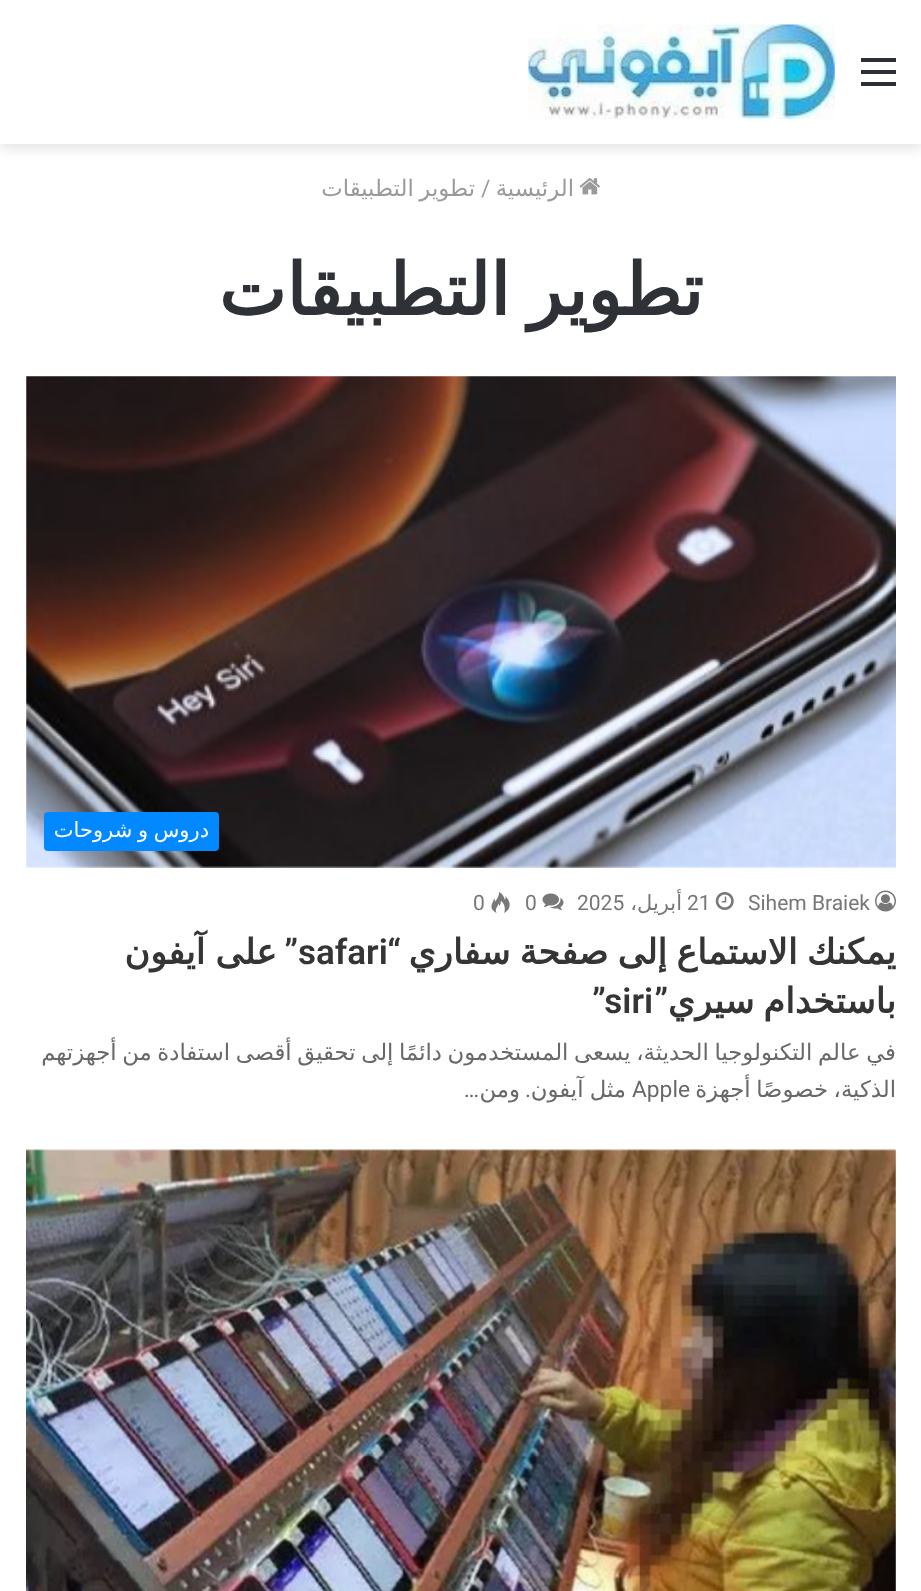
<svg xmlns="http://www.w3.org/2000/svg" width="921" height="1591">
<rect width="100%" height="100%" fill="#fff"/>
<rect y="5" width="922" height="144" fill="#0000001a" filter="blur(6px)"/>
<rect width="921" height="144" fill="#fff"/>
<rect x="861" y="70" width="35" height="4" fill="#2c2f34"/>
<rect x="861" y="58" width="35" height="4" fill="#2c2f34"/>
<rect x="861" y="82" width="35" height="4" fill="#2c2f34"/>
<image x="528" y="24" width="307" height="95" href="media/1.png"/>
<image x="579" y="178" width="21" height="17" href="media/2.png"/>
<text x="574" y="196" style="font-family:DejaVu Sans;font-size:22.75px;direction:rtl;fill:#9a9a9a">الرئيسية</text>
<text x="481" y="196" style="font-family:Roboto;font-size:22.75px;fill:#9a9a9a">/</text>
<text x="475" y="196" word-spacing="-1.6" style="font-family:DejaVu Sans;font-size:22.75px;direction:rtl;fill:#9a9a9a">تطوير التطبيقات</text>
<text x="703" y="315" word-spacing="-5" style="font-family:DejaVu Sans;font-size:71.75px;font-weight:bold;direction:rtl;fill:#2e3136">تطوير التطبيقات</text>
<image x="26" y="376" width="870" height="492" href="media/3.png"/>
<rect x="44" y="812" width="175" height="39" rx="4" fill="#0389ff"/>
<text x="209" y="837" word-spacing="-1" style="font-family:DejaVu Sans;font-size:21px;direction:rtl;fill:#fff">دروس و شروحات</text>
<image x="875" y="890" width="21" height="22" href="media/4.png"/>
<text x="748" y="910" style="font-family:Roboto;font-size:21px;fill:#777">Sihem Braiek</text>
<image x="715" y="892" width="19" height="18" href="media/5.png"/>
<text x="687" y="910" style="font-family:Roboto;font-size:21px;fill:#777">21</text>
<text x="682" y="910" style="font-family:DejaVu Sans;font-size:21px;direction:rtl;fill:#777">أبريل،</text>
<text x="577" y="910" style="font-family:Roboto;font-size:21px;fill:#777">2025</text>
<image x="542" y="893" width="22" height="17" href="media/6.png"/>
<text x="525" y="910" style="font-family:Roboto;font-size:21px;fill:#777">0</text>
<image x="491" y="892" width="19" height="21" href="media/7.png"/>
<text x="473" y="910" style="font-family:Roboto;font-size:21px;fill:#777">0</text>
<text x="896" y="964" word-spacing="-2" style="font-family:DejaVu Sans;font-size:35px;font-weight:bold;direction:rtl;fill:#353535">يمكنك الاستماع إلى صفحة سفاري</text>
<text x="401" y="964" style="font-family:Roboto;font-size:35px;font-weight:600;direction:rtl;fill:#353535">“</text>
<text x="298" y="964" style="font-family:Roboto;font-size:35px;font-weight:600;fill:#353535">safari</text>
<text x="298" y="964" style="font-family:Roboto;font-size:35px;font-weight:600;direction:rtl;fill:#353535">”</text>
<text x="277" y="964" word-spacing="-1" style="font-family:DejaVu Sans;font-size:35px;font-weight:bold;direction:rtl;fill:#353535">على آيفون</text>
<text x="896" y="1013" word-spacing="-2" style="font-family:DejaVu Sans;font-size:35px;font-weight:bold;direction:rtl;fill:#353535">باستخدام سيري</text>
<text x="668" y="1013" style="font-family:Roboto;font-size:35px;font-weight:600;direction:rtl;fill:#353535">”</text>
<text x="592" y="1013" style="font-family:Roboto;font-size:35px;font-weight:600;fill:#353535">”siri</text>
<text x="896" y="1060" word-spacing="-1.6" style="font-family:DejaVu Sans;font-size:22.75px;direction:rtl;fill:#686868">في عالم التكنولوجيا الحديثة، يسعى المستخدمون دائمًا إلى تحقيق أقصى استفادة من أجهزتهم</text>
<text x="896" y="1097" word-spacing="-1.6" style="font-family:DejaVu Sans;font-size:22.75px;direction:rtl;fill:#686868">الذكية، خصوصًا أجهزة</text>
<text x="632" y="1097" style="font-family:Roboto;font-size:22.75px;fill:#686868">Apple</text>
<text x="626" y="1097" word-spacing="-1" style="font-family:DejaVu Sans;font-size:22.75px;direction:rtl;fill:#686868">مثل آيفون</text>
<text x="531" y="1097" style="font-family:Roboto;font-size:22.75px;direction:rtl;fill:#686868">.</text>
<text x="520" y="1097" style="font-family:DejaVu Sans;font-size:22.75px;direction:rtl;fill:#686868">ومن</text>
<text x="479" y="1097" style="font-family:Roboto;font-size:22.75px;direction:rtl;fill:#686868">…</text>
<image x="26" y="1149" width="870" height="442" href="media/8.png"/>
</svg>
